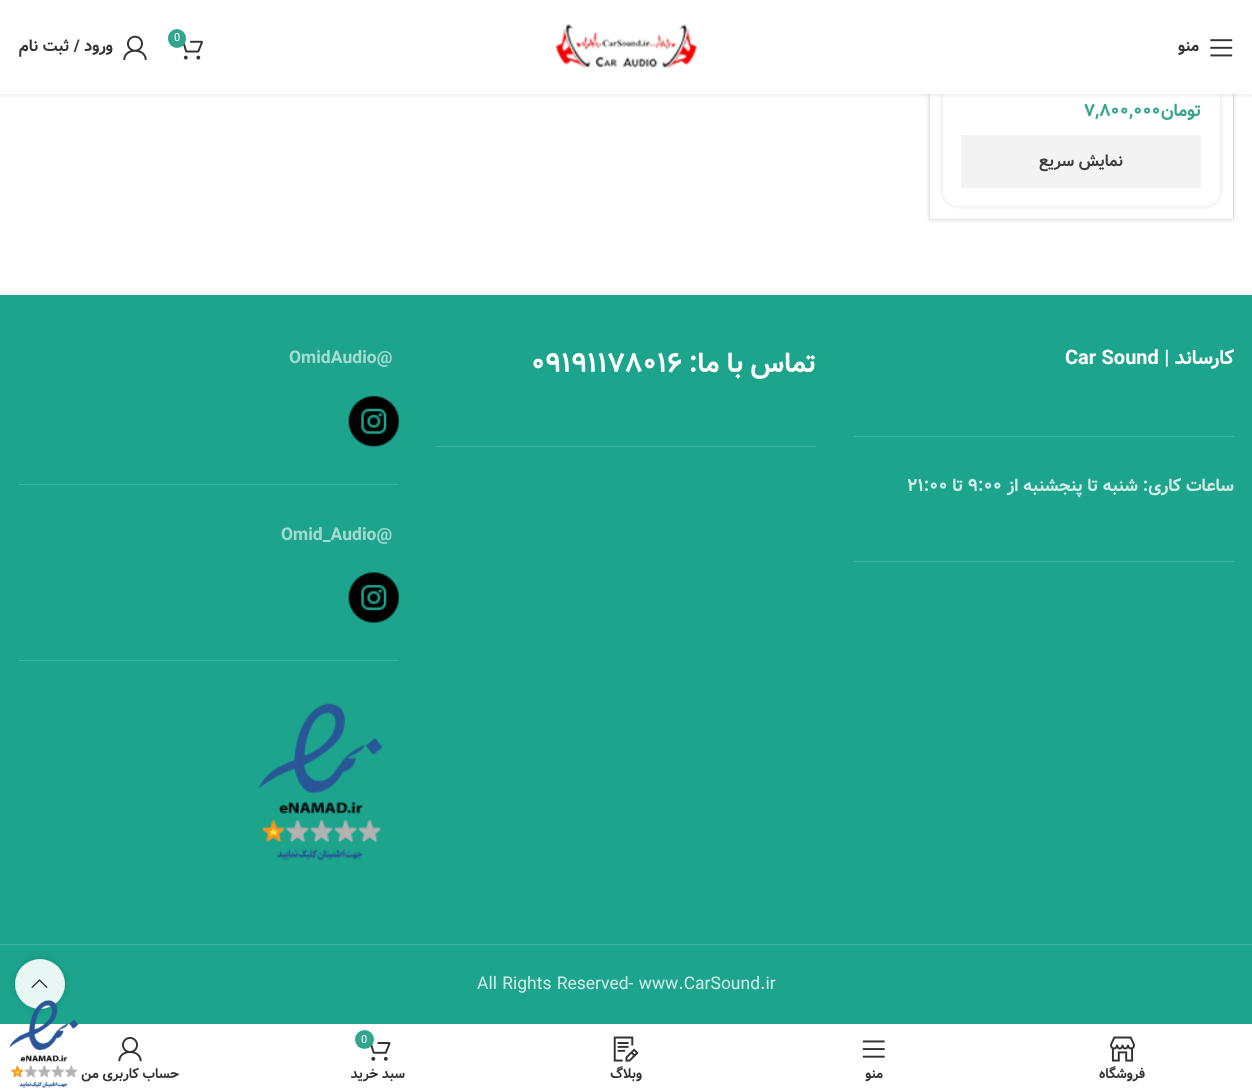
<svg xmlns="http://www.w3.org/2000/svg" width="1252" height="1092">
<defs>
<clipPath id="clip1"><path d="M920 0h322v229h-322zm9-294h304v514h-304z" clip-rule="evenodd"/></clipPath>
<clipPath id="clip2"><path d="M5 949h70v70h-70zm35 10c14 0 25 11 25 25c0 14-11 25-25 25c-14 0-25-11-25-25c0-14 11-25 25-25z" clip-rule="evenodd"/></clipPath>
</defs>
<rect width="100%" height="100%" fill="#fff"/>
<rect x="1233" y="94" width="1" height="126" fill="#e4e4e4"/>
<g clip-path="url(#clip1)">
<rect x="929" y="-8" width="304" height="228" fill="#0000001f" filter="blur(2.5px)"/>
</g>
<path d="M1232 220h-303l1-1h302z" fill="#e4e4e4"/>
<path d="M929 220v-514l1 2v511z" fill="#0000001c"/>
<rect x="943" y="-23" width="277" height="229" rx="15" fill="#0000001f" filter="blur(2.5px)"/>
<rect x="943" y="-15" width="277" height="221" rx="15" fill="#fff"/>
<rect y="1" width="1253" height="94" fill="#0000001a" filter="blur(2px)"/>
<rect width="1252" height="94" fill="#fff"/>
<image x="1210" y="39" width="23" height="18" href="media/1.png"/>
<text x="1199" y="51" style="font-family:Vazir;font-size:16.25px;font-weight:bold;direction:rtl;fill:#333">منو</text>
<image x="555" y="24" width="143" height="45" href="media/2.png"/>
<image x="183" y="40" width="20" height="20" href="media/3.png"/>
<rect x="168" y="29" width="18" height="19" rx="9" fill="#33a58e"/>
<text x="174" y="41" style="font-family:Vazir;font-size:11px;fill:#fff">0</text>
<image x="123" y="35" width="24" height="25" href="media/4.png"/>
<text x="113" y="51" style="font-family:Vazir;font-size:16.25px;font-weight:bold;direction:rtl;fill:#333">ورود / ثبت نام</text>
<text x="1201" y="116" style="font-family:Vazir;font-size:17.5px;font-weight:bold;direction:rtl;fill:#33a58e">تومان</text>
<text x="1084" y="116" style="font-family:Vazir;font-size:17.5px;font-weight:bold;fill:#33a58e">۷,۸۰۰,۰۰۰</text>
<rect x="961" y="135" width="240" height="53" fill="#f3f3f3"/>
<text x="1123" y="166" style="font-family:Vazir;font-size:16.25px;font-weight:bold;direction:rtl;fill:#3e3e3e">نمایش سریع</text>
<rect y="295" width="1252" height="729" fill="#1ca58c"/>
<rect x="854" y="436" width="380" height="1" fill="#3eb39d"/>
<text x="1234" y="364" style="font-family:Vazir;font-size:20px;font-weight:bold;direction:rtl;fill:#fff">کارساند |</text>
<text x="1065" y="364" style="font-family:Vazir;font-size:20px;font-weight:bold;fill:#fff">Car Sound</text>
<rect x="854" y="561" width="380" height="1" fill="#3eb39d"/>
<text x="1234" y="491" style="font-family:Vazir;font-size:17.5px;font-weight:bold;direction:rtl;fill:#d2ede8">ساعات کاری: شنبه تا پنجشنبه از</text>
<text x="968" y="491" style="font-family:Vazir;font-size:17.5px;font-weight:bold;fill:#d2ede8">۹:۰۰</text>
<text x="963" y="491" style="font-family:Vazir;font-size:17.5px;font-weight:bold;direction:rtl;fill:#d2ede8">تا</text>
<text x="907" y="491" style="font-family:Vazir;font-size:17.5px;font-weight:bold;fill:#d2ede8">۲۱:۰۰</text>
<rect x="436" y="446" width="380" height="1" fill="#3eb39d"/>
<text x="816" y="372" style="font-family:Vazir;font-size:27.5px;font-weight:bold;direction:rtl;fill:#fff">تماس با ما:</text>
<text x="531" y="372" style="font-family:Vazir;font-size:27.5px;font-weight:bold;fill:#fff">۰۹۱۹۱۱۷۸۰۱۶</text>
<rect x="19" y="484" width="380" height="1" fill="#3eb39d"/>
<text x="289" y="363" style="font-family:Vazir;font-size:17.5px;font-weight:bold;fill:#a4dbd1">OmidAudio@</text>
<image x="348" y="396" width="51" height="51" href="media/5.png"/>
<rect x="19" y="660" width="380" height="1" fill="#3eb39d"/>
<text x="281" y="540" style="font-family:Vazir;font-size:17.5px;font-weight:bold;fill:#a4dbd1">Omid_Audio@</text>
<image x="348" y="572" width="51" height="51" href="media/6.png"/>
<image x="258" y="703" width="125" height="158" href="media/7.png"/>
<rect y="944" width="1252" height="1" fill="#3eb39d"/>
<text x="477" y="989" word-spacing="0.5" style="font-family:Vazir;font-size:17.5px;fill:#d2ede8">All Rights Reserved- www.CarSound.ir</text>
<g clip-path="url(#clip2)">
<rect x="15" y="959" width="50" height="50" rx="25" fill="#0000002b" filter="blur(3px)"/>
</g>
<circle cx="40" cy="984" r="25" fill="#ffffffe6"/>
<image x="31" y="979" width="17" height="9" href="media/8.png"/>
<image x="1110" y="1036" width="25" height="26" href="media/9.png"/>
<text x="1145" y="1078" style="font-family:Vazir;font-size:13.75px;font-weight:bold;direction:rtl;fill:#333">فروشگاه</text>
<image x="862" y="1040" width="23" height="18" href="media/10.png"/>
<text x="883" y="1078" style="font-family:Vazir;font-size:13.75px;font-weight:bold;direction:rtl;fill:#333">منو</text>
<image x="613" y="1036" width="26" height="26" href="media/11.png"/>
<text x="642" y="1078" style="font-family:Vazir;font-size:13.75px;font-weight:bold;direction:rtl;fill:#333">وبلاگ</text>
<image x="370" y="1042" width="21" height="19" href="media/12.png"/>
<circle cx="364.5" cy="1039.5" r="9.5" fill="#33a58e"/>
<text x="361" y="1043" style="font-family:Vazir;font-size:11px;fill:#fff">0</text>
<text x="405" y="1078" style="font-family:Vazir;font-size:13.75px;font-weight:bold;direction:rtl;fill:#333">سبد خرید</text>
<image x="118" y="1037" width="24" height="25" href="media/13.png"/>
<text x="179" y="1078" style="font-family:Vazir;font-size:13.75px;font-weight:bold;direction:rtl;fill:#333">حساب کاربری من</text>
<image x="9" y="1000" width="70" height="88" href="media/14.png"/>
</svg>
